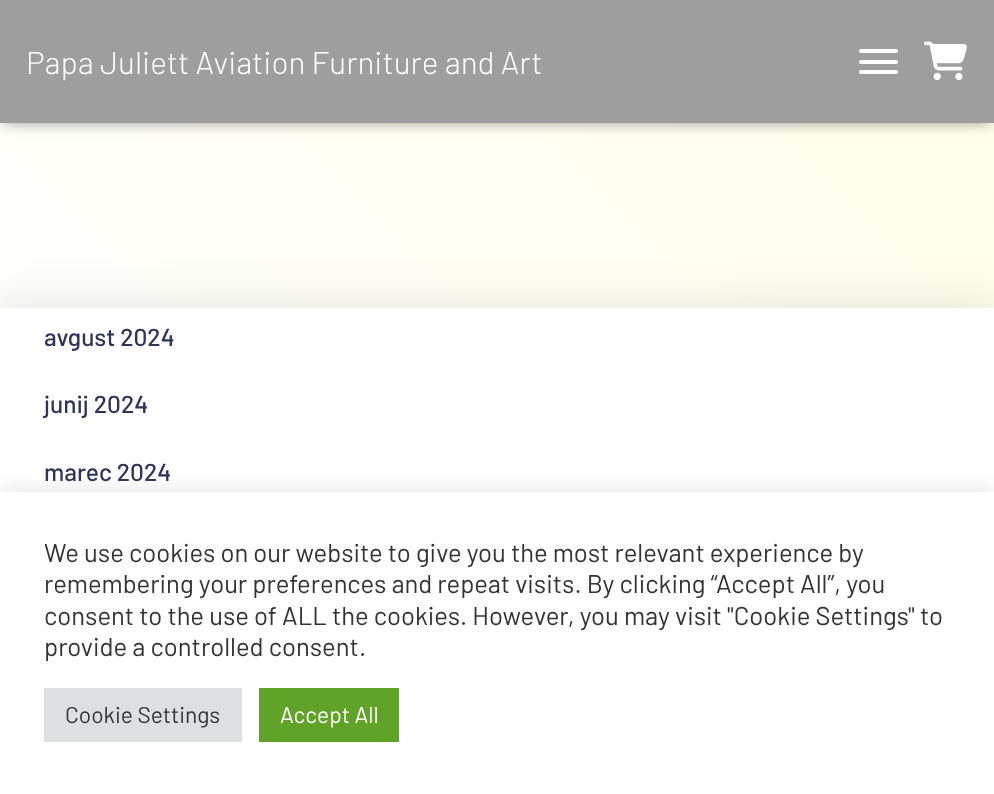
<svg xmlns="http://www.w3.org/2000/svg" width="994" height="794">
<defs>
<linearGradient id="g1" gradientUnits="userSpaceOnUse" x1="155" y1="568" x2="839" y2="-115"><stop offset="0" stop-color="#fff"/><stop offset="1" stop-color="#ffffea"/></linearGradient>
</defs>
<rect width="100%" height="100%" fill="#fff"/>
<rect y="123" width="994" height="185" fill="url(#g1)"/>
<rect x="4" y="11" width="987" height="115" fill="#0000001a" filter="blur(4.5px)"/>
<rect y="2" width="994" height="122" fill="#0000001f" filter="blur(9px)"/>
<rect x="11" y="12" width="973" height="102" fill="#0000006b" filter="blur(9px)"/>
<rect width="994" height="123" fill="#9e9e9e"/>
<text x="26" y="74" style="font-family:Barlow;font-size:31.5px;font-weight:300;fill:#fff">Papa Juliett Aviation Furniture and Art</text>
<rect x="859" y="49" width="39" height="4" rx="2" fill="#fff"/>
<rect x="859" y="60" width="39" height="4" rx="2" fill="#fff"/>
<rect x="859" y="70" width="39" height="4" rx="2" fill="#fff"/>
<image x="924" y="41" width="43" height="39" href="media/1.png"/>
<rect x="-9" y="310" width="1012" height="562" fill="#0000001f" filter="blur(26px)"/>
<rect y="308" width="994" height="184" fill="#fff"/>
<text x="44" y="346" style="font-family:Barlow;font-size:24.5px;font-weight:500;fill:#2d3359">avgust 2024</text>
<text x="44" y="413" style="font-family:Barlow;font-size:24.5px;font-weight:500;fill:#2d3359">junij 2024</text>
<text x="44" y="481" style="font-family:Barlow;font-size:24.5px;font-weight:500;fill:#2d3359">marec 2024</text>
<rect y="490" width="994" height="303" fill="#acabab4d" filter="blur(9px)"/>
<rect y="492" width="994" height="302" fill="#fff"/>
<text x="44" y="562" style="font-family:Barlow;font-size:25.65px;fill:#333">We use cookies on our website to give you the most relevant experience by</text>
<text x="44" y="593" style="font-family:Barlow;font-size:25.65px;fill:#333">remembering your preferences and repeat visits. By clicking “Accept All”, you</text>
<text x="44" y="625" style="font-family:Barlow;font-size:25.65px;fill:#333">consent to the use of ALL the cookies. However, you may visit "Cookie Settings" to</text>
<text x="44" y="656" style="font-family:Barlow;font-size:25.65px;fill:#333">provide a controlled consent.</text>
<rect x="44" y="688" width="198" height="54" fill="#dedfe0"/>
<text x="65" y="723" style="font-family:Barlow;font-size:22.75px;fill:#333">Cookie Settings</text>
<rect x="259" y="688" width="140" height="54" fill="#61a229"/>
<text x="280" y="723" style="font-family:Barlow;font-size:22.75px;fill:#fff">Accept All</text>
</svg>
